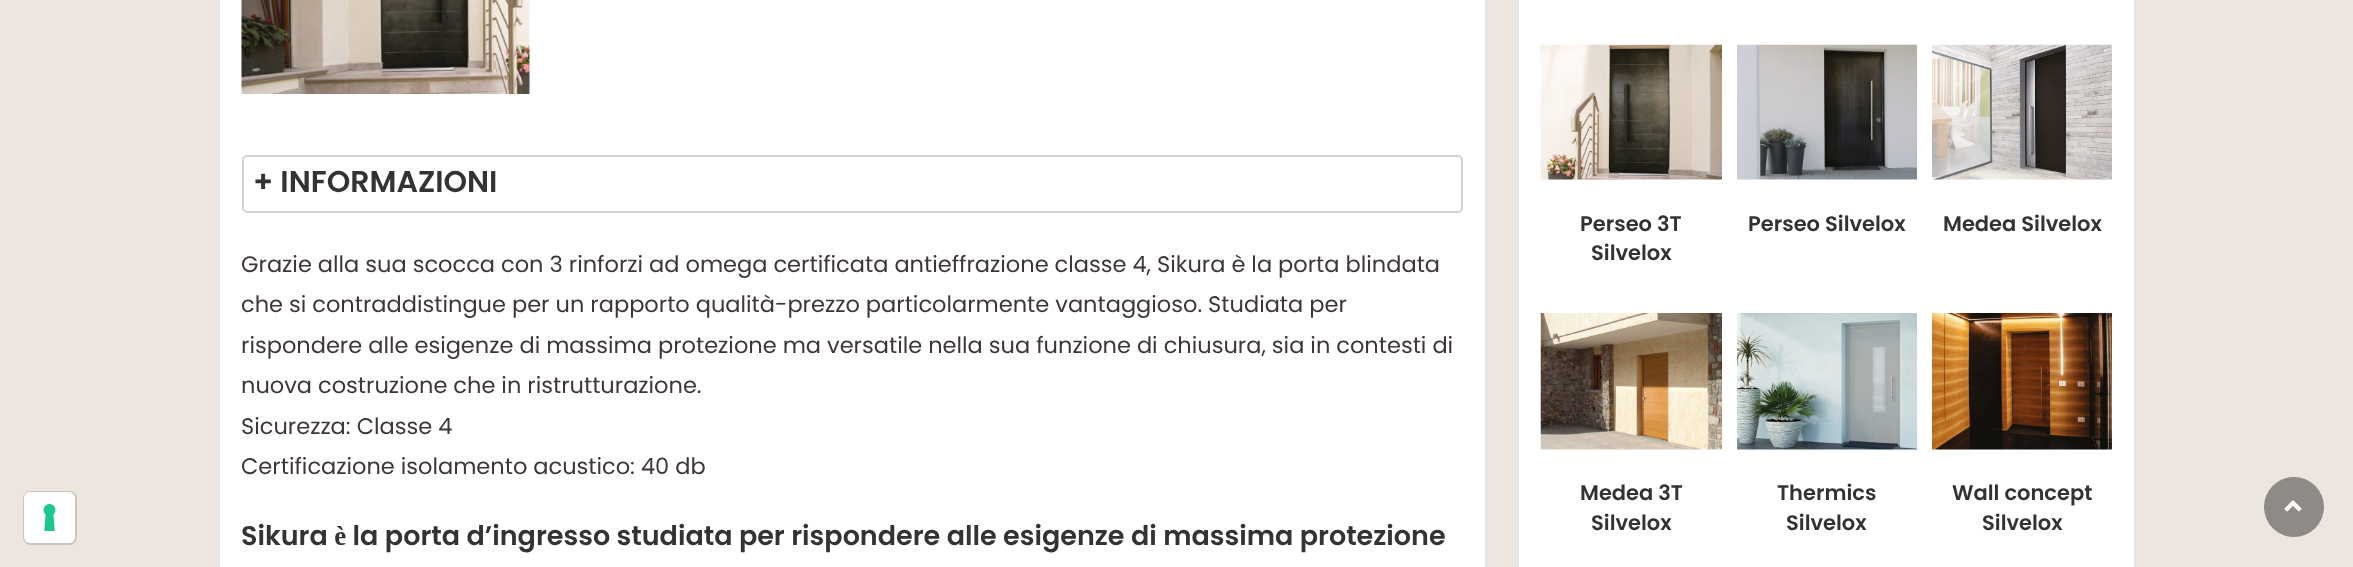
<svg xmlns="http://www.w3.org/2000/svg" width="2353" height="567">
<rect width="100%" height="100%" fill="#ece6df"/>
<rect x="24" y="492" width="52" height="52" rx="7" fill="none" stroke="#c9c4be" stroke-width="2"/>
<rect x="24" y="492" width="51" height="51" rx="6" fill="#fff"/>
<image x="43" y="504" width="13" height="27" href="media/1.png"/>
<rect x="219" y="-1" width="1267" height="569" fill="#fff" stroke="#e4e5e7" stroke-width="2"/>
<image x="241" y="0" width="289" height="94" href="media/2.png"/>
<rect x="243" y="156" width="1219" height="56" rx="4" fill="none" stroke="#d3d3d3" stroke-width="2"/>
<text x="253" y="192" style="font-family:Poppins;font-size:30px;font-weight:600;fill:#333">+ INFORMAZIONI</text>
<text x="241" y="272" style="font-family:Poppins;font-size:22.5px;fill:#3f3636">Grazie alla sua scocca con 3 rinforzi ad omega certificata antieffrazione classe 4, Sikura è la porta blindata</text>
<text x="241" y="312" style="font-family:Poppins;font-size:22.5px;fill:#3f3636">che si contraddistingue per un rapporto qualità-prezzo particolarmente vantaggioso. Studiata per</text>
<text x="241" y="353" style="font-family:Poppins;font-size:22.5px;fill:#3f3636">rispondere alle esigenze di massima protezione ma versatile nella sua funzione di chiusura, sia in contesti di</text>
<text x="241" y="393" style="font-family:Poppins;font-size:22.5px;fill:#3f3636">nuova costruzione che in ristrutturazione.</text>
<text x="241" y="434" style="font-family:Poppins;font-size:22.5px;fill:#3f3636">Sicurezza: Classe 4</text>
<text x="241" y="474" style="font-family:Poppins;font-size:22.5px;fill:#3f3636">Certificazione isolamento acustico: 40 db</text>
<text x="241" y="545" style="font-family:Poppins;font-size:27px;font-weight:600;fill:#333">Sikura è la porta d’ingresso studiata per rispondere alle esigenze di massima protezione</text>
<rect x="1518" y="-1" width="617" height="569" fill="#fff" stroke="#e4e5e7" stroke-width="2"/>
<image x="1540" y="44" width="182" height="136" href="media/3.png"/>
<text x="1580" y="231" style="font-family:Poppins;font-size:21px;font-weight:600;fill:#333">Perseo 3T</text>
<text x="1591" y="260" style="font-family:Poppins;font-size:21px;font-weight:600;fill:#333">Silvelox</text>
<image x="1737" y="44" width="180" height="136" href="media/4.png"/>
<text x="1748" y="231" style="font-family:Poppins;font-size:21px;font-weight:600;fill:#333">Perseo Silvelox</text>
<image x="1932" y="44" width="180" height="136" href="media/5.png"/>
<text x="1943" y="231" style="font-family:Poppins;font-size:21px;font-weight:600;fill:#333">Medea Silvelox</text>
<image x="1540" y="313" width="182" height="137" href="media/6.png"/>
<text x="1580" y="500" style="font-family:Poppins;font-size:21px;font-weight:600;fill:#333">Medea 3T</text>
<text x="1591" y="530" style="font-family:Poppins;font-size:21px;font-weight:600;fill:#333">Silvelox</text>
<image x="1737" y="313" width="180" height="137" href="media/7.png"/>
<text x="1777" y="500" style="font-family:Poppins;font-size:21px;font-weight:600;fill:#333">Thermics</text>
<text x="1786" y="530" style="font-family:Poppins;font-size:21px;font-weight:600;fill:#333">Silvelox</text>
<image x="1932" y="313" width="180" height="137" href="media/8.png"/>
<text x="1952" y="500" style="font-family:Poppins;font-size:21px;font-weight:600;fill:#333">Wall concept</text>
<text x="1982" y="530" style="font-family:Poppins;font-size:21px;font-weight:600;fill:#333">Silvelox</text>
<circle cx="2294" cy="507" r="30" fill="#8e8a86"/>
<image x="2284" y="500" width="18" height="12" href="media/9.png"/>
</svg>
